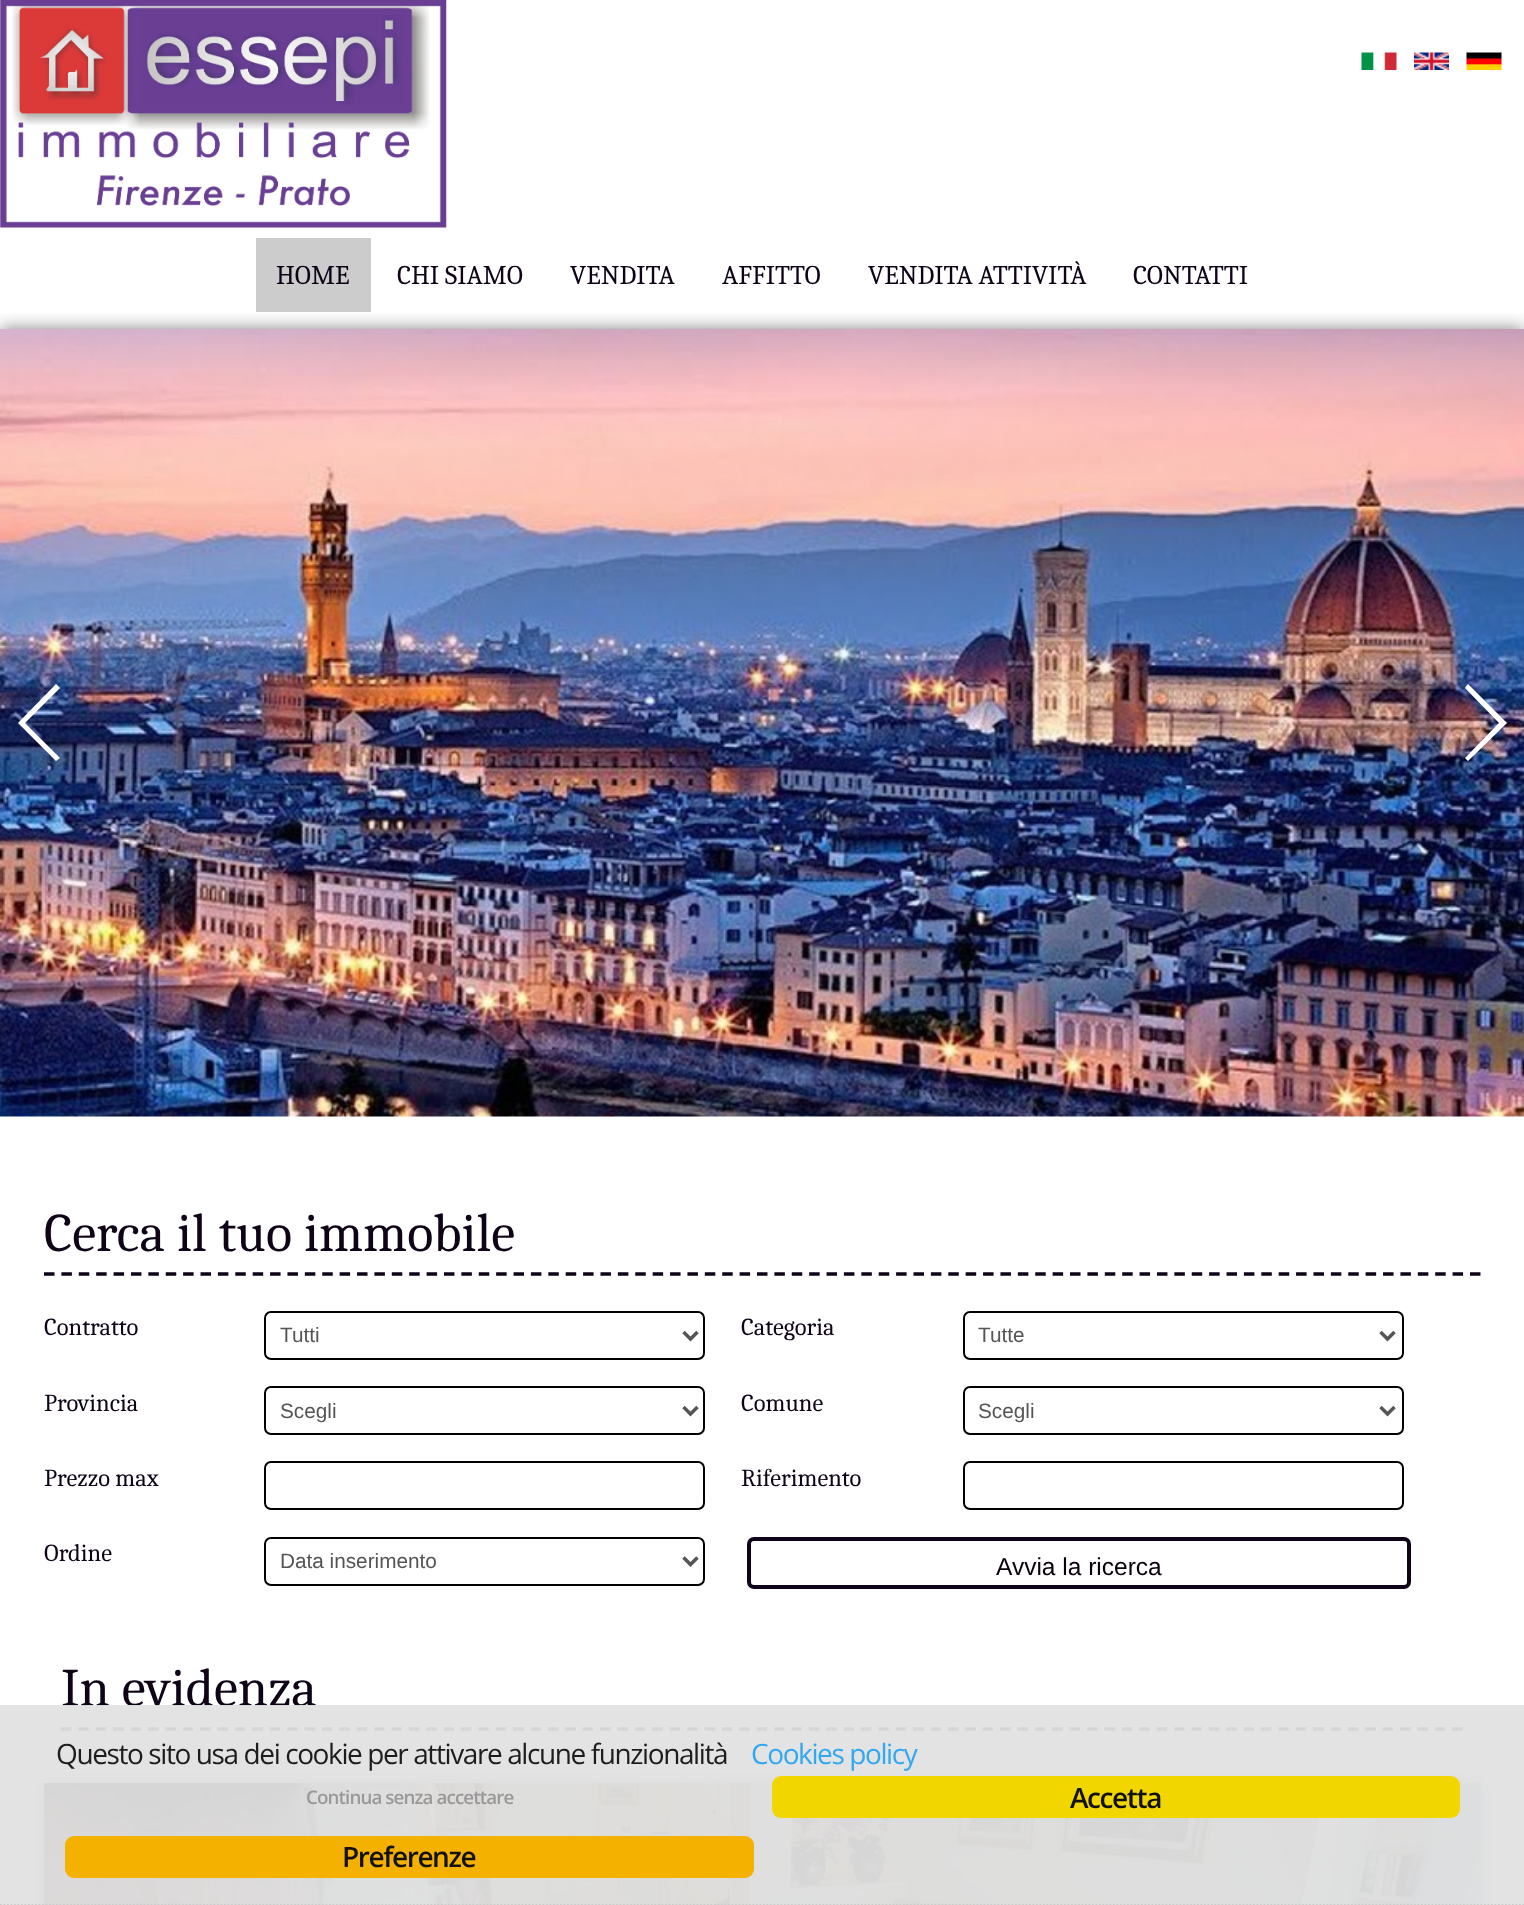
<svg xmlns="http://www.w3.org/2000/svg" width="1524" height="1905">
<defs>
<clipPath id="clip1"><rect x="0" y="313" width="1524" height="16"/></clipPath>
</defs>
<rect width="100%" height="100%" fill="#fff"/>
<image x="0" y="0" width="447" height="228" href="media/1.png"/>
<image x="1361" y="52" width="36" height="18" href="media/2.png"/>
<image x="1414" y="52" width="35" height="18" href="media/3.png"/>
<image x="1466" y="52" width="36" height="18" href="media/4.png"/>
<g clip-path="url(#clip1)">
<rect y="329" width="1524" height="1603" fill="#00000080" filter="blur(9px)"/>
</g>
<rect x="7" y="311" width="1510" height="1" fill="#fff"/>
<rect x="256" y="238" width="115" height="74" fill="#ccc"/>
<text x="276" y="284" style="font-family:Caladea;font-size:27px;fill:#0e0317">HOME</text>
<text x="397" y="284" style="font-family:Caladea;font-size:27px;fill:#0e0317">CHI SIAMO</text>
<text x="570" y="284" style="font-family:Caladea;font-size:27px;fill:#0e0317">VENDITA</text>
<text x="722" y="284" style="font-family:Caladea;font-size:27px;fill:#0e0317">AFFITTO</text>
<text x="868" y="284" style="font-family:Caladea;font-size:27px;fill:#0e0317">VENDITA ATTIVITÀ</text>
<text x="1133" y="284" style="font-family:Caladea;font-size:27px;fill:#0e0317">CONTATTI</text>
<image x="0" y="329" width="1524" height="788" href="media/5.png"/>
<path d="M18 723l38-39l4 4l-35 35l35 35l-4 3z" fill="#fff"/>
<path d="M1507 723l-39 38l-3-3l34-35l-34-35l3-4z" fill="#fff"/>
<path d="M44 1274h1436.5" fill="none" stroke="#0e0317" stroke-width="3.5" stroke-dasharray="10.5 6.89"/>
<text x="44" y="1251" style="font-family:Caladea;font-size:54.25px;fill:#0e0317">Cerca il tuo immobile</text>
<text x="44" y="1335" style="font-family:Caladea;font-size:24.5px;fill:#0e0317">Contratto</text>
<rect x="265" y="1312" width="439" height="47" rx="6" fill="none" stroke="#000" stroke-width="2"/>
<path d="M683.5 1332l7 7l7-7" fill="none" stroke="#555" stroke-width="3.5"/>
<text x="280" y="1342" style="font-family:Liberation Sans;font-size:20.75px;fill:#555">Tutti</text>
<text x="741" y="1335" style="font-family:Caladea;font-size:24.5px;fill:#0e0317">Categoria</text>
<rect x="964" y="1312" width="439" height="47" rx="6" fill="none" stroke="#000" stroke-width="2"/>
<path d="M1380.5 1332l7 7l7-7" fill="none" stroke="#555" stroke-width="3.5"/>
<text x="978" y="1342" style="font-family:Liberation Sans;font-size:20.75px;fill:#555">Tutte</text>
<text x="44" y="1411" style="font-family:Caladea;font-size:24.5px;fill:#0e0317">Provincia</text>
<rect x="265" y="1387" width="439" height="47" rx="6" fill="none" stroke="#000" stroke-width="2"/>
<path d="M683.5 1407l7 7l7-7" fill="none" stroke="#555" stroke-width="3.5"/>
<text x="280" y="1418" style="font-family:Liberation Sans;font-size:20.75px;fill:#555">Scegli</text>
<text x="741" y="1411" style="font-family:Caladea;font-size:24.5px;fill:#0e0317">Comune</text>
<rect x="964" y="1387" width="439" height="47" rx="6" fill="none" stroke="#000" stroke-width="2"/>
<path d="M1380.5 1407l7 7l7-7" fill="none" stroke="#555" stroke-width="3.5"/>
<text x="978" y="1418" style="font-family:Liberation Sans;font-size:20.75px;fill:#555">Scegli</text>
<text x="44" y="1486" style="font-family:Caladea;font-size:24.5px;fill:#0e0317">Prezzo max</text>
<rect x="265" y="1462" width="439" height="47" rx="6" fill="none" stroke="#000" stroke-width="2"/>
<text x="741" y="1486" style="font-family:Caladea;font-size:24.5px;fill:#0e0317">Riferimento</text>
<rect x="964" y="1462" width="439" height="47" rx="6" fill="none" stroke="#000" stroke-width="2"/>
<text x="44" y="1561" style="font-family:Caladea;font-size:24.5px;fill:#0e0317">Ordine</text>
<rect x="265" y="1538" width="439" height="47" rx="6" fill="none" stroke="#000" stroke-width="2"/>
<path d="M683.5 1557.5l7 7l7-7" fill="none" stroke="#555" stroke-width="3.5"/>
<text x="280" y="1568" style="font-family:Liberation Sans;font-size:20.75px;fill:#555">Data inserimento</text>
<rect x="749" y="1539" width="660" height="48" rx="5" fill="none" stroke="#0e0317" stroke-width="4"/>
<text x="996" y="1575" style="font-family:Liberation Sans;font-size:24.5px;fill:#0a000a">Avvia la ricerca</text>
<path d="M61 1729h1402" fill="none" stroke="#0e0317" stroke-width="3.5" stroke-dasharray="10.5 6.89"/>
<text x="61" y="1706" style="font-family:Caladea;font-size:54.25px;fill:#0e0317">In evidenza</text>
<rect x="44" y="1783" width="1437" height="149" fill="#00000080" filter="blur(9px)"/>
<image x="44" y="1783" width="1437" height="122" href="media/6.png"/>
<rect y="1705" width="1524" height="200" fill="#e2e2e2f2"/>
<path d="M0 1905h1524" fill="none" stroke="#ccc" stroke-width="1.8" stroke-dasharray="1.75 1.75"/>
<text x="56" y="1764" style="font-family:Open Sans;font-size:28px;letter-spacing:-1.4px;fill:#1d1d1d">Questo sito usa dei cookie per attivare alcune funzionalità</text>
<text x="751" y="1764" style="font-family:Open Sans;font-size:28px;letter-spacing:-1.4px;fill:#31a8f0">Cookies policy</text>
<text x="306" y="1804" style="font-family:Open Sans;font-size:18.75px;font-weight:600;letter-spacing:-0.9px;fill:#999">Continua senza accettare</text>
<rect x="772" y="1776" width="688" height="42" rx="9" fill="#f1d600"/>
<text x="1070" y="1808" style="font-family:Open Sans;font-size:28px;font-weight:600;letter-spacing:-1.4px;fill:#111">Accetta</text>
<rect x="65" y="1836" width="689" height="42" rx="9" fill="#f4b100"/>
<text x="342" y="1867" style="font-family:Open Sans;font-size:28px;font-weight:600;letter-spacing:-1.4px;fill:#111">Preferenze</text>
</svg>
